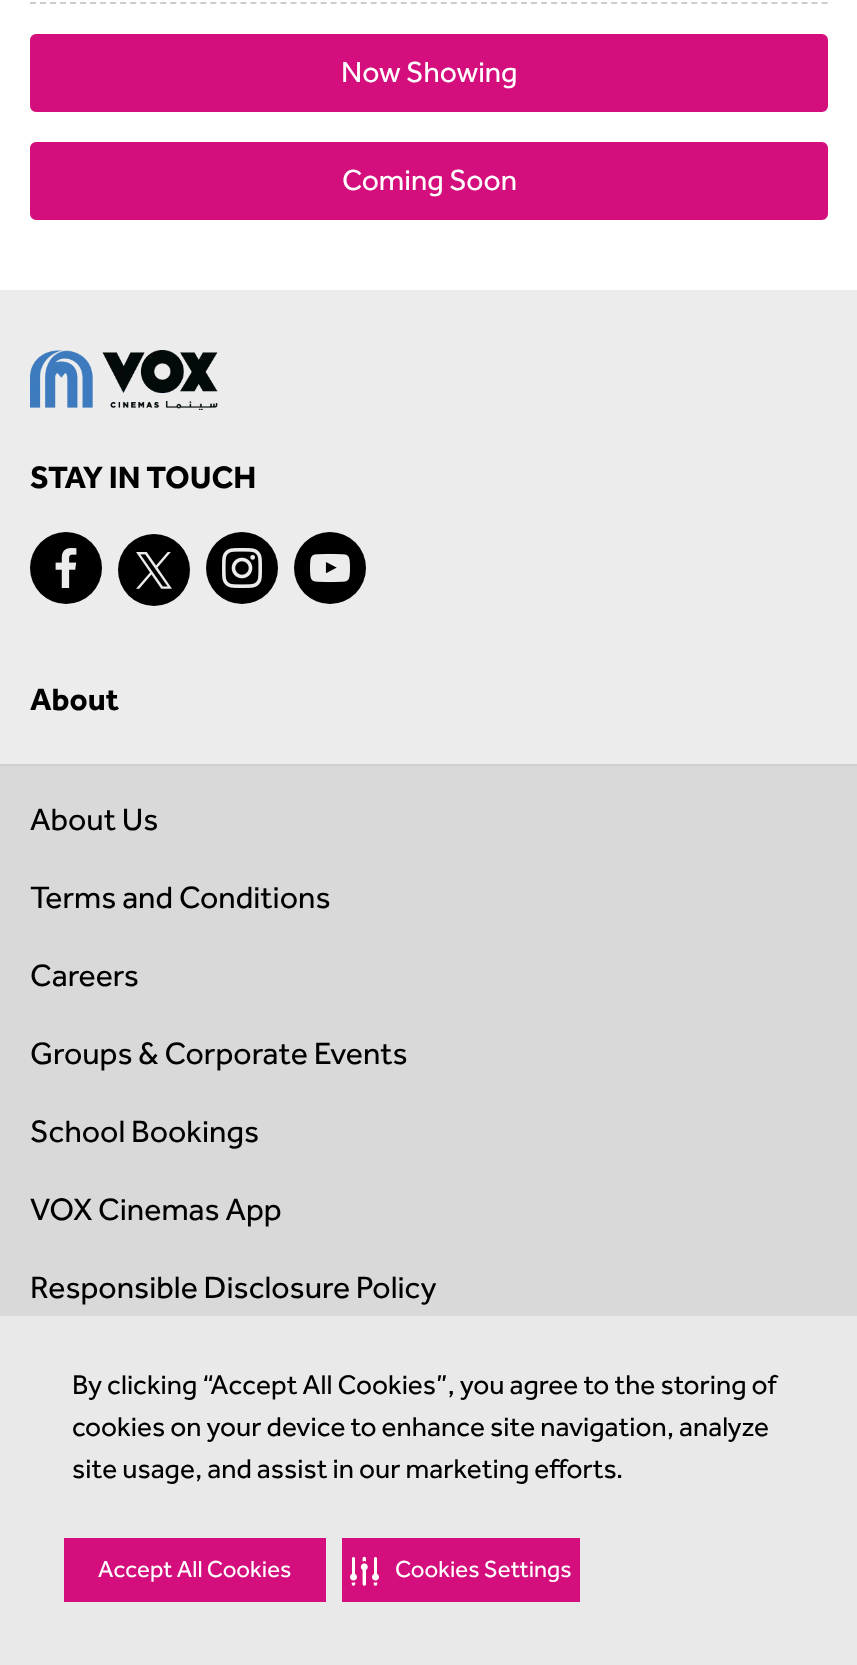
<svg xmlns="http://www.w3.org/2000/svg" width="857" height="1665">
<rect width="100%" height="100%" fill="#fff"/>
<path d="M30 3h798" fill="none" stroke="#ccc" stroke-width="2" stroke-dasharray="6 4.02"/>
<rect x="31" y="35" width="796" height="76" rx="5" fill="#d40f7d" stroke="#d40f7d" stroke-width="2"/>
<text x="341" y="82" style="font-family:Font;font-size:30px;fill:#fff">Now Showing</text>
<rect x="31" y="143" width="796" height="76" rx="5" fill="#d40f7d" stroke="#d40f7d" stroke-width="2"/>
<text x="342" y="190" style="font-family:Font;font-size:30px;fill:#fff">Coming Soon</text>
<rect y="290" width="857" height="474" fill="#ececec"/>
<image x="30" y="350" width="188" height="60" href="media/1.png"/>
<text x="30" y="488" style="font-family:Font;font-size:32px;font-weight:bold;fill:#000">STAY IN TOUCH</text>
<circle cx="66" cy="568" r="36" fill="#000"/>
<image x="55" y="548" width="22" height="40" href="media/2.png"/>
<circle cx="154" cy="570" r="36" fill="#000"/>
<image x="136" y="552" width="36" height="37" href="media/3.png"/>
<circle cx="242" cy="568" r="36" fill="#000"/>
<image x="222" y="548" width="40" height="40" href="media/4.png"/>
<circle cx="330" cy="568" r="36" fill="#000"/>
<image x="310" y="553" width="40" height="30" href="media/5.png"/>
<rect y="764" width="857" height="2" fill="#cecece"/>
<text x="30" y="710" style="font-family:Font;font-size:32px;font-weight:bold;fill:#000">About</text>
<rect y="766" width="857" height="550" fill="#d9d9d9"/>
<text x="30" y="830" style="font-family:Font;font-size:32px;fill:#000">About Us</text>
<text x="30" y="908" style="font-family:Font;font-size:32px;fill:#000">Terms and Conditions</text>
<text x="30" y="986" style="font-family:Font;font-size:32px;fill:#000">Careers</text>
<text x="30" y="1064" style="font-family:Font;font-size:32px;fill:#000">Groups &amp; Corporate Events</text>
<text x="30" y="1142" style="font-family:Font;font-size:32px;fill:#000">School Bookings</text>
<text x="30" y="1220" style="font-family:Font;font-size:32px;fill:#000">VOX Cinemas App</text>
<text x="30" y="1298" style="font-family:Font;font-size:32px;fill:#000">Responsible Disclosure Policy</text>
<rect y="1316" width="857" height="349" fill="#e9e9e9"/>
<text x="72" y="1394" style="font-family:Font;font-size:28px;fill:#000">By clicking “Accept All Cookies”, you agree to the storing of</text>
<text x="72" y="1436" style="font-family:Font;font-size:28px;fill:#000">cookies on your device to enhance site navigation, analyze</text>
<text x="72" y="1478" style="font-family:Font;font-size:28px;fill:#000">site usage, and assist in our marketing efforts.</text>
<rect x="64" y="1538" width="262" height="64" fill="#d40f7d"/>
<text x="98" y="1577" style="font-family:Font;font-size:24px;fill:#fff">Accept All Cookies</text>
<rect x="342" y="1538" width="238" height="64" fill="#d40f7d"/>
<image x="350" y="1556" width="29" height="30" href="media/6.png"/>
<text x="395" y="1577" style="font-family:Font;font-size:24px;fill:#fff">Cookies Settings</text>
</svg>
